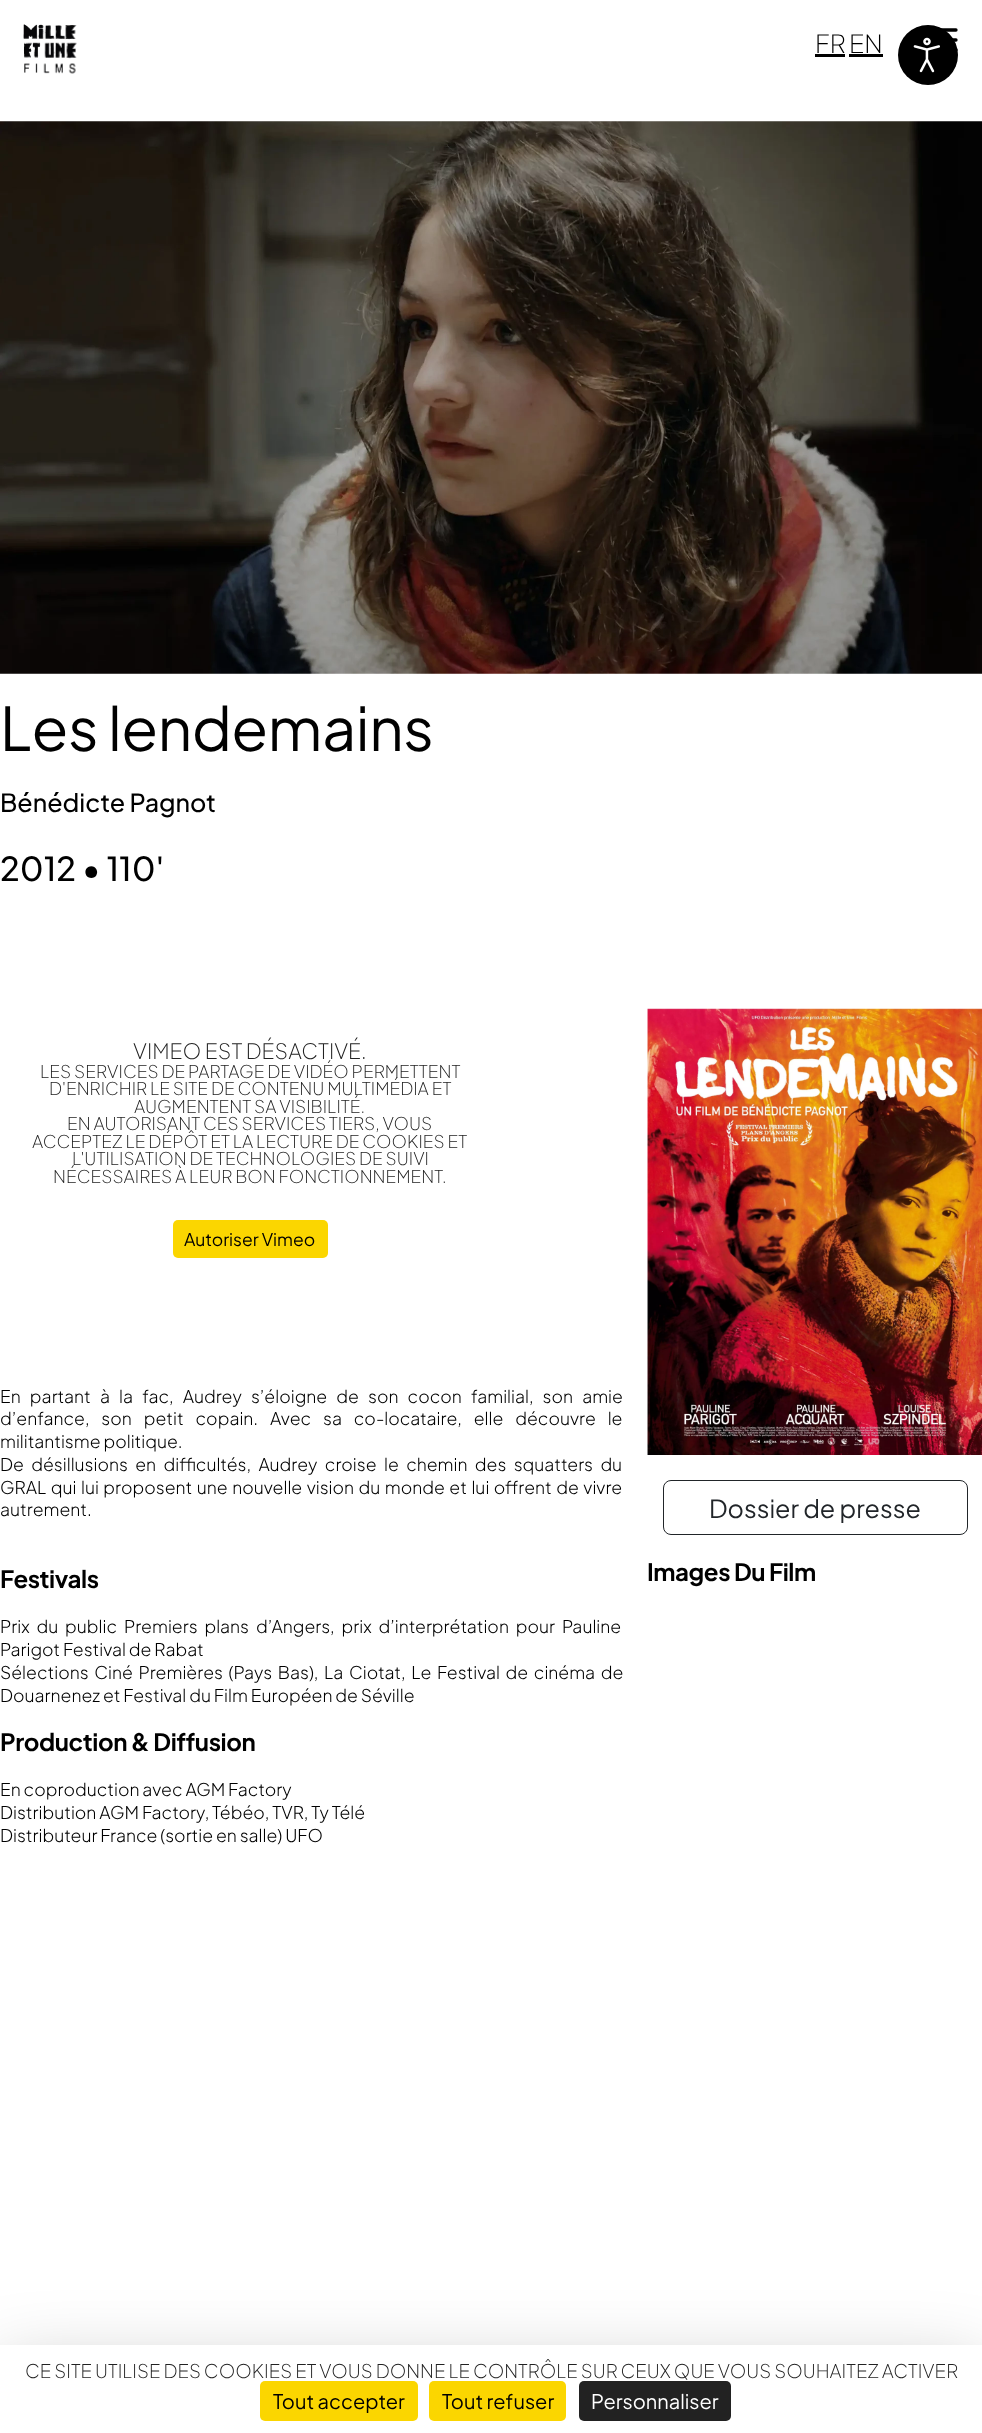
<svg xmlns="http://www.w3.org/2000/svg" width="982" height="2433">
<rect width="100%" height="100%" fill="#fff"/>
<image x="23" y="24" width="54" height="50" href="media/1.png"/>
<text x="815" y="53" style="font-family:Plus Jakarta Sans;font-size:25px;font-weight:200;fill:#000">FR</text>
<rect x="815" y="54" width="30" height="3" fill="#000"/>
<text x="849" y="53" style="font-family:Plus Jakarta Sans;font-size:25px;font-weight:200;fill:#000">EN</text>
<rect x="849" y="54" width="34" height="3" fill="#000"/>
<path d="M929 50h27m-27-10h27m-27-10h27" fill="none" stroke="#000" stroke-width="3.3" stroke-linecap="round"/>
<image x="0" y="121" width="982" height="553" href="media/2.png"/>
<text x="0" y="751" style="font-family:Plus Jakarta Sans;font-size:60px;letter-spacing:-0.4px;fill:#000">Les lendemains</text>
<text x="0" y="812" style="font-family:Plus Jakarta Sans;font-size:25px;font-weight:500;fill:#000">Bénédicte Pagnot</text>
<text x="0" y="881" style="font-family:Plus Jakarta Sans;font-size:33px;font-weight:500;fill:#000">2012 • 110'</text>
<text x="133" y="1059" style="font-family:Plus Jakarta Sans;font-size:21.25px;font-weight:200;fill:#222">VIMEO EST DÉSACTIVÉ.</text>
<text x="40" y="1078" style="font-family:Plus Jakarta Sans;font-size:17.5px;font-weight:200;fill:#222">LES SERVICES DE PARTAGE DE VIDÉO PERMETTENT</text>
<text x="49" y="1095" style="font-family:Plus Jakarta Sans;font-size:17.5px;font-weight:200;fill:#222">D'ENRICHIR LE SITE DE CONTENU MULTIMÉDIA ET</text>
<text x="134" y="1113" style="font-family:Plus Jakarta Sans;font-size:17.5px;font-weight:200;fill:#222">AUGMENTENT SA VISIBILITÉ.</text>
<text x="67" y="1130" style="font-family:Plus Jakarta Sans;font-size:17.5px;font-weight:200;fill:#222">EN AUTORISANT CES SERVICES TIERS, VOUS</text>
<text x="32" y="1148" style="font-family:Plus Jakarta Sans;font-size:17.5px;font-weight:200;fill:#222">ACCEPTEZ LE DÉPÔT ET LA LECTURE DE COOKIES ET</text>
<text x="72" y="1165" style="font-family:Plus Jakarta Sans;font-size:17.5px;font-weight:200;fill:#222">L'UTILISATION DE TECHNOLOGIES DE SUIVI</text>
<text x="53" y="1183" style="font-family:Plus Jakarta Sans;font-size:17.5px;font-weight:200;fill:#222">NÉCESSAIRES À LEUR BON FONCTIONNEMENT.</text>
<rect x="173" y="1220" width="155" height="38" rx="5" fill="#fbd600"/>
<text x="184" y="1246" style="font-family:Plus Jakarta Sans;font-size:17.5px;fill:#000">Autoriser Vimeo</text>
<text x="0" y="1403" word-spacing="6.25" style="font-family:Plus Jakarta Sans;font-size:17.5px;font-weight:300;fill:#000">En partant à la fac, Audrey s’éloigne de son cocon familial, son amie</text>
<text x="0" y="1425" word-spacing="9" style="font-family:Plus Jakarta Sans;font-size:17.5px;font-weight:300;fill:#000">d’enfance, son petit copain. Avec sa co-locataire, elle découvre le</text>
<text x="0" y="1448" style="font-family:Plus Jakarta Sans;font-size:17.5px;font-weight:300;fill:#000">militantisme politique.</text>
<text x="0" y="1471" word-spacing="4.5" style="font-family:Plus Jakarta Sans;font-size:17.5px;font-weight:300;fill:#000">De désillusions en difficultés, Audrey croise le chemin des squatters du</text>
<text x="0" y="1494" word-spacing="1.6" style="font-family:Plus Jakarta Sans;font-size:17.5px;font-weight:300;fill:#000">GRAL qui lui proposent une nouvelle vision du monde et lui offrent de vivre</text>
<text x="0" y="1516" style="font-family:Plus Jakarta Sans;font-size:17.5px;font-weight:300;fill:#000">autrement.</text>
<text x="0" y="1588" style="font-family:Plus Jakarta Sans;font-size:24px;font-weight:bold;letter-spacing:-0.4px;fill:#000">Festivals</text>
<text x="0" y="1633" word-spacing="4" style="font-family:Plus Jakarta Sans;font-size:17.5px;font-weight:300;fill:#000">Prix du public Premiers plans d’Angers, prix d’interprétation pour Pauline</text>
<text x="0" y="1656" style="font-family:Plus Jakarta Sans;font-size:17.5px;font-weight:300;fill:#000">Parigot Festival de Rabat</text>
<text x="0" y="1679" word-spacing="2.75" style="font-family:Plus Jakarta Sans;font-size:17.5px;font-weight:300;fill:#000">Sélections Ciné Premières (Pays Bas), La Ciotat, Le Festival de cinéma de</text>
<text x="0" y="1702" style="font-family:Plus Jakarta Sans;font-size:17.5px;font-weight:300;fill:#000">Douarnenez et Festival du Film Européen de Séville</text>
<text x="0" y="1751" style="font-family:Plus Jakarta Sans;font-size:24px;font-weight:bold;letter-spacing:-0.4px;fill:#000">Production &amp; Diffusion</text>
<text x="0" y="1796" style="font-family:Plus Jakarta Sans;font-size:17.5px;font-weight:300;fill:#000">En coproduction avec AGM Factory</text>
<text x="0" y="1819" style="font-family:Plus Jakarta Sans;font-size:17.5px;font-weight:300;fill:#000">Distribution AGM Factory, Tébéo, TVR, Ty Télé</text>
<text x="0" y="1842" style="font-family:Plus Jakarta Sans;font-size:17.5px;font-weight:300;fill:#000">Distributeur France (sortie en salle) UFO</text>
<image x="647" y="1008" width="335" height="447" href="media/3.png"/>
<rect x="663.5" y="1480.5" width="304" height="54" rx="7.5" fill="none" stroke="#212529"/>
<text x="709" y="1518" style="font-family:Plus Jakarta Sans;font-size:25px;fill:#212529">Dossier de presse</text>
<text x="647" y="1581" style="font-family:Plus Jakarta Sans;font-size:24px;font-weight:bold;letter-spacing:-0.4px;fill:#000">Images Du Film</text>
<circle cx="928" cy="55" r="30" fill="#000"/>
<image x="913" y="37" width="27" height="36" href="media/4.png"/>
<rect y="2370" width="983" height="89" fill="#00000040" filter="blur(37.5px)"/>
<rect y="2345" width="982" height="88" fill="#fff"/>
<text x="25" y="2378" style="font-family:Plus Jakarta Sans;font-size:18.75px;font-weight:200;fill:#222">CE SITE UTILISE DES COOKIES ET VOUS DONNE LE CONTRÔLE SUR CEUX QUE VOUS SOUHAITEZ ACTIVER</text>
<rect x="260" y="2381" width="158" height="40" rx="5" fill="#fbd600"/>
<text x="273" y="2409" style="font-family:Plus Jakarta Sans;font-size:20px;fill:#000">Tout accepter</text>
<rect x="429" y="2381" width="137" height="40" rx="5" fill="#fbd600"/>
<text x="442" y="2409" style="font-family:Plus Jakarta Sans;font-size:20px;fill:#000">Tout refuser</text>
<rect x="579" y="2381" width="152" height="40" rx="5" fill="#222"/>
<text x="591" y="2409" style="font-family:Plus Jakarta Sans;font-size:20px;fill:#fff">Personnaliser</text>
</svg>
